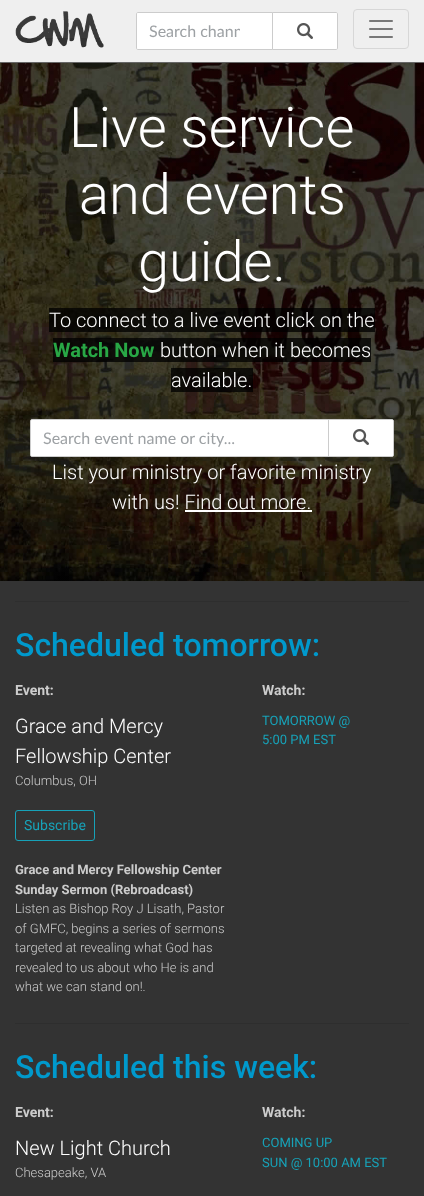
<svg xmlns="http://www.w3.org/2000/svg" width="424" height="1196">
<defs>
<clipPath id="clip1"><rect x="149" y="21" width="91" height="19"/></clipPath>
</defs>
<rect width="100%" height="100%" fill="#efefef"/>
<image x="15" y="11" width="89" height="37" href="media/1.png"/>
<path d="M272.5 12.5h63.5c1 0 1.5 .5 1.5 1.5v34c0 1-.5 1.5-1.5 1.5h-63.5z" fill="#fff" stroke="#ccc"/>
<path d="M138 12.5h134.5v37h-134.5c-1 0-1.5-.5-1.5-1.5v-34c0-1 .5-1.5 1.5-1.5z" fill="#fff" stroke="#ccc"/>
<g clip-path="url(#clip1)">
<text x="149" y="37" style="font-family:Lato;font-size:16px;fill:#9da1a4">Search chann</text>
</g>
<image x="297" y="23" width="16" height="16" href="media/2.png"/>
<rect x="353.5" y="9.5" width="55" height="39" rx="3.5" fill="none" stroke="#d7d7d7"/>
<image x="369" y="20" width="24" height="18" href="media/3.png"/>
<rect y="62" width="424" height="1" fill="#666"/>
<image x="0" y="63" width="424" height="518" href="media/4.png"/>
<text x="69" y="147" style="font-family:Roboto;font-size:56px;font-weight:300;fill:#fff">Live service</text>
<text x="79" y="214" style="font-family:Roboto;font-size:56px;font-weight:300;fill:#fff">and events</text>
<text x="138" y="281" style="font-family:Roboto;font-size:56px;font-weight:300;fill:#fff">guide.</text>
<rect x="49" y="308" width="326" height="24" fill="#000000bf"/>
<text x="49" y="327" style="font-family:Roboto;font-size:20px;font-weight:300;fill:#fff">To connect to a live event click on the</text>
<rect x="53" y="338" width="102" height="24" fill="#000000bf"/>
<text x="53" y="357" style="font-family:Roboto;font-size:20px;font-weight:bold;fill:#28a745">Watch Now</text>
<rect x="155" y="338" width="216" height="24" fill="#000000bf"/>
<text x="160" y="357" style="font-family:Roboto;font-size:20px;font-weight:300;fill:#fff">button when it becomes</text>
<rect x="171" y="368" width="82" height="24" fill="#000000bf"/>
<text x="171" y="387" style="font-family:Roboto;font-size:20px;font-weight:300;fill:#fff">available.</text>
<path d="M328.5 419.5h63.5c1 0 1.5 .5 1.5 1.5v34c0 1-.5 1.5-1.5 1.5h-63.5z" fill="#fff" stroke="#ccc"/>
<path d="M32 419.5h296.5v37h-296.5c-1 0-1.5-.5-1.5-1.5v-34c0-1 .5-1.5 1.5-1.5z" fill="#fff" stroke="#ccc"/>
<text x="43" y="444" style="font-family:Lato;font-size:16px;fill:#9da1a4">Search event name or city...</text>
<image x="353" y="429" width="16" height="16" href="media/2.png"/>
<text x="52" y="479" style="font-family:Roboto;font-size:20px;font-weight:300;fill:#fff">List your ministry or favorite ministry</text>
<text x="112" y="509" style="font-family:Roboto;font-size:20px;font-weight:300;fill:#fff">with us! Find out more.</text>
<rect x="185" y="510" width="127" height="2" fill="#fff"/>
<rect y="581" width="424" height="615" fill="#333"/>
<rect x="15" y="601" width="394" height="1" fill="#2e2e2e"/>
<text x="15" y="656" style="font-family:Roboto;font-size:32px;font-weight:500;fill:#09c">Scheduled tomorrow:</text>
<text x="15" y="695" style="font-family:Roboto;font-size:14px;font-weight:bold;fill:#ccc">Event:</text>
<text x="262" y="695" style="font-family:Roboto;font-size:14px;font-weight:bold;fill:#ccc">Watch:</text>
<text x="15" y="733" style="font-family:Roboto;font-size:20px;font-weight:300;fill:#fff">Grace and Mercy</text>
<text x="15" y="763" style="font-family:Roboto;font-size:20px;font-weight:300;fill:#fff">Fellowship Center</text>
<text x="15" y="785" style="font-family:Roboto;font-size:13px;font-weight:300;fill:#ccc">Columbus, OH</text>
<rect x="15.5" y="810.5" width="79" height="30" rx="2.5" fill="none" stroke="#17a2b8"/>
<text x="24" y="830" style="font-family:Roboto;font-size:14px;fill:#17a2b8">Subscribe</text>
<text x="15" y="874" style="font-family:Roboto;font-size:13px;font-weight:bold;fill:#ccc">Grace and Mercy Fellowship Center</text>
<text x="15" y="894" style="font-family:Roboto;font-size:13px;font-weight:bold;fill:#ccc">Sunday Sermon (Rebroadcast)</text>
<text x="15" y="913" style="font-family:Roboto;font-size:13px;font-weight:300;fill:#ccc">Listen as Bishop Roy J Lisath, Pastor</text>
<text x="15" y="933" style="font-family:Roboto;font-size:13px;font-weight:300;fill:#ccc">of GMFC, begins a series of sermons</text>
<text x="15" y="952" style="font-family:Roboto;font-size:13px;font-weight:300;fill:#ccc">targeted at revealing what God has</text>
<text x="15" y="972" style="font-family:Roboto;font-size:13px;font-weight:300;fill:#ccc">revealed to us about who He is and</text>
<text x="15" y="991" style="font-family:Roboto;font-size:13px;font-weight:300;fill:#ccc">what we can stand on!.</text>
<text x="262" y="725" style="font-family:Roboto;font-size:13px;fill:#17a2b8">TOMORROW @</text>
<text x="262" y="744" style="font-family:Roboto;font-size:13px;fill:#17a2b8">5:00 PM EST</text>
<rect x="15" y="1023" width="394" height="1" fill="#2e2e2e"/>
<text x="15" y="1078" style="font-family:Roboto;font-size:32px;font-weight:500;fill:#09c">Scheduled this week:</text>
<text x="15" y="1117" style="font-family:Roboto;font-size:14px;font-weight:bold;fill:#ccc">Event:</text>
<text x="262" y="1117" style="font-family:Roboto;font-size:14px;font-weight:bold;fill:#ccc">Watch:</text>
<text x="15" y="1155" style="font-family:Roboto;font-size:20px;font-weight:300;fill:#fff">New Light Church</text>
<text x="15" y="1177" style="font-family:Roboto;font-size:13px;font-weight:300;fill:#ccc">Chesapeake, VA</text>
<text x="262" y="1147" style="font-family:Roboto;font-size:13px;fill:#17a2b8">COMING UP</text>
<text x="262" y="1167" style="font-family:Roboto;font-size:13px;fill:#17a2b8">SUN @ 10:00 AM EST</text>
</svg>
